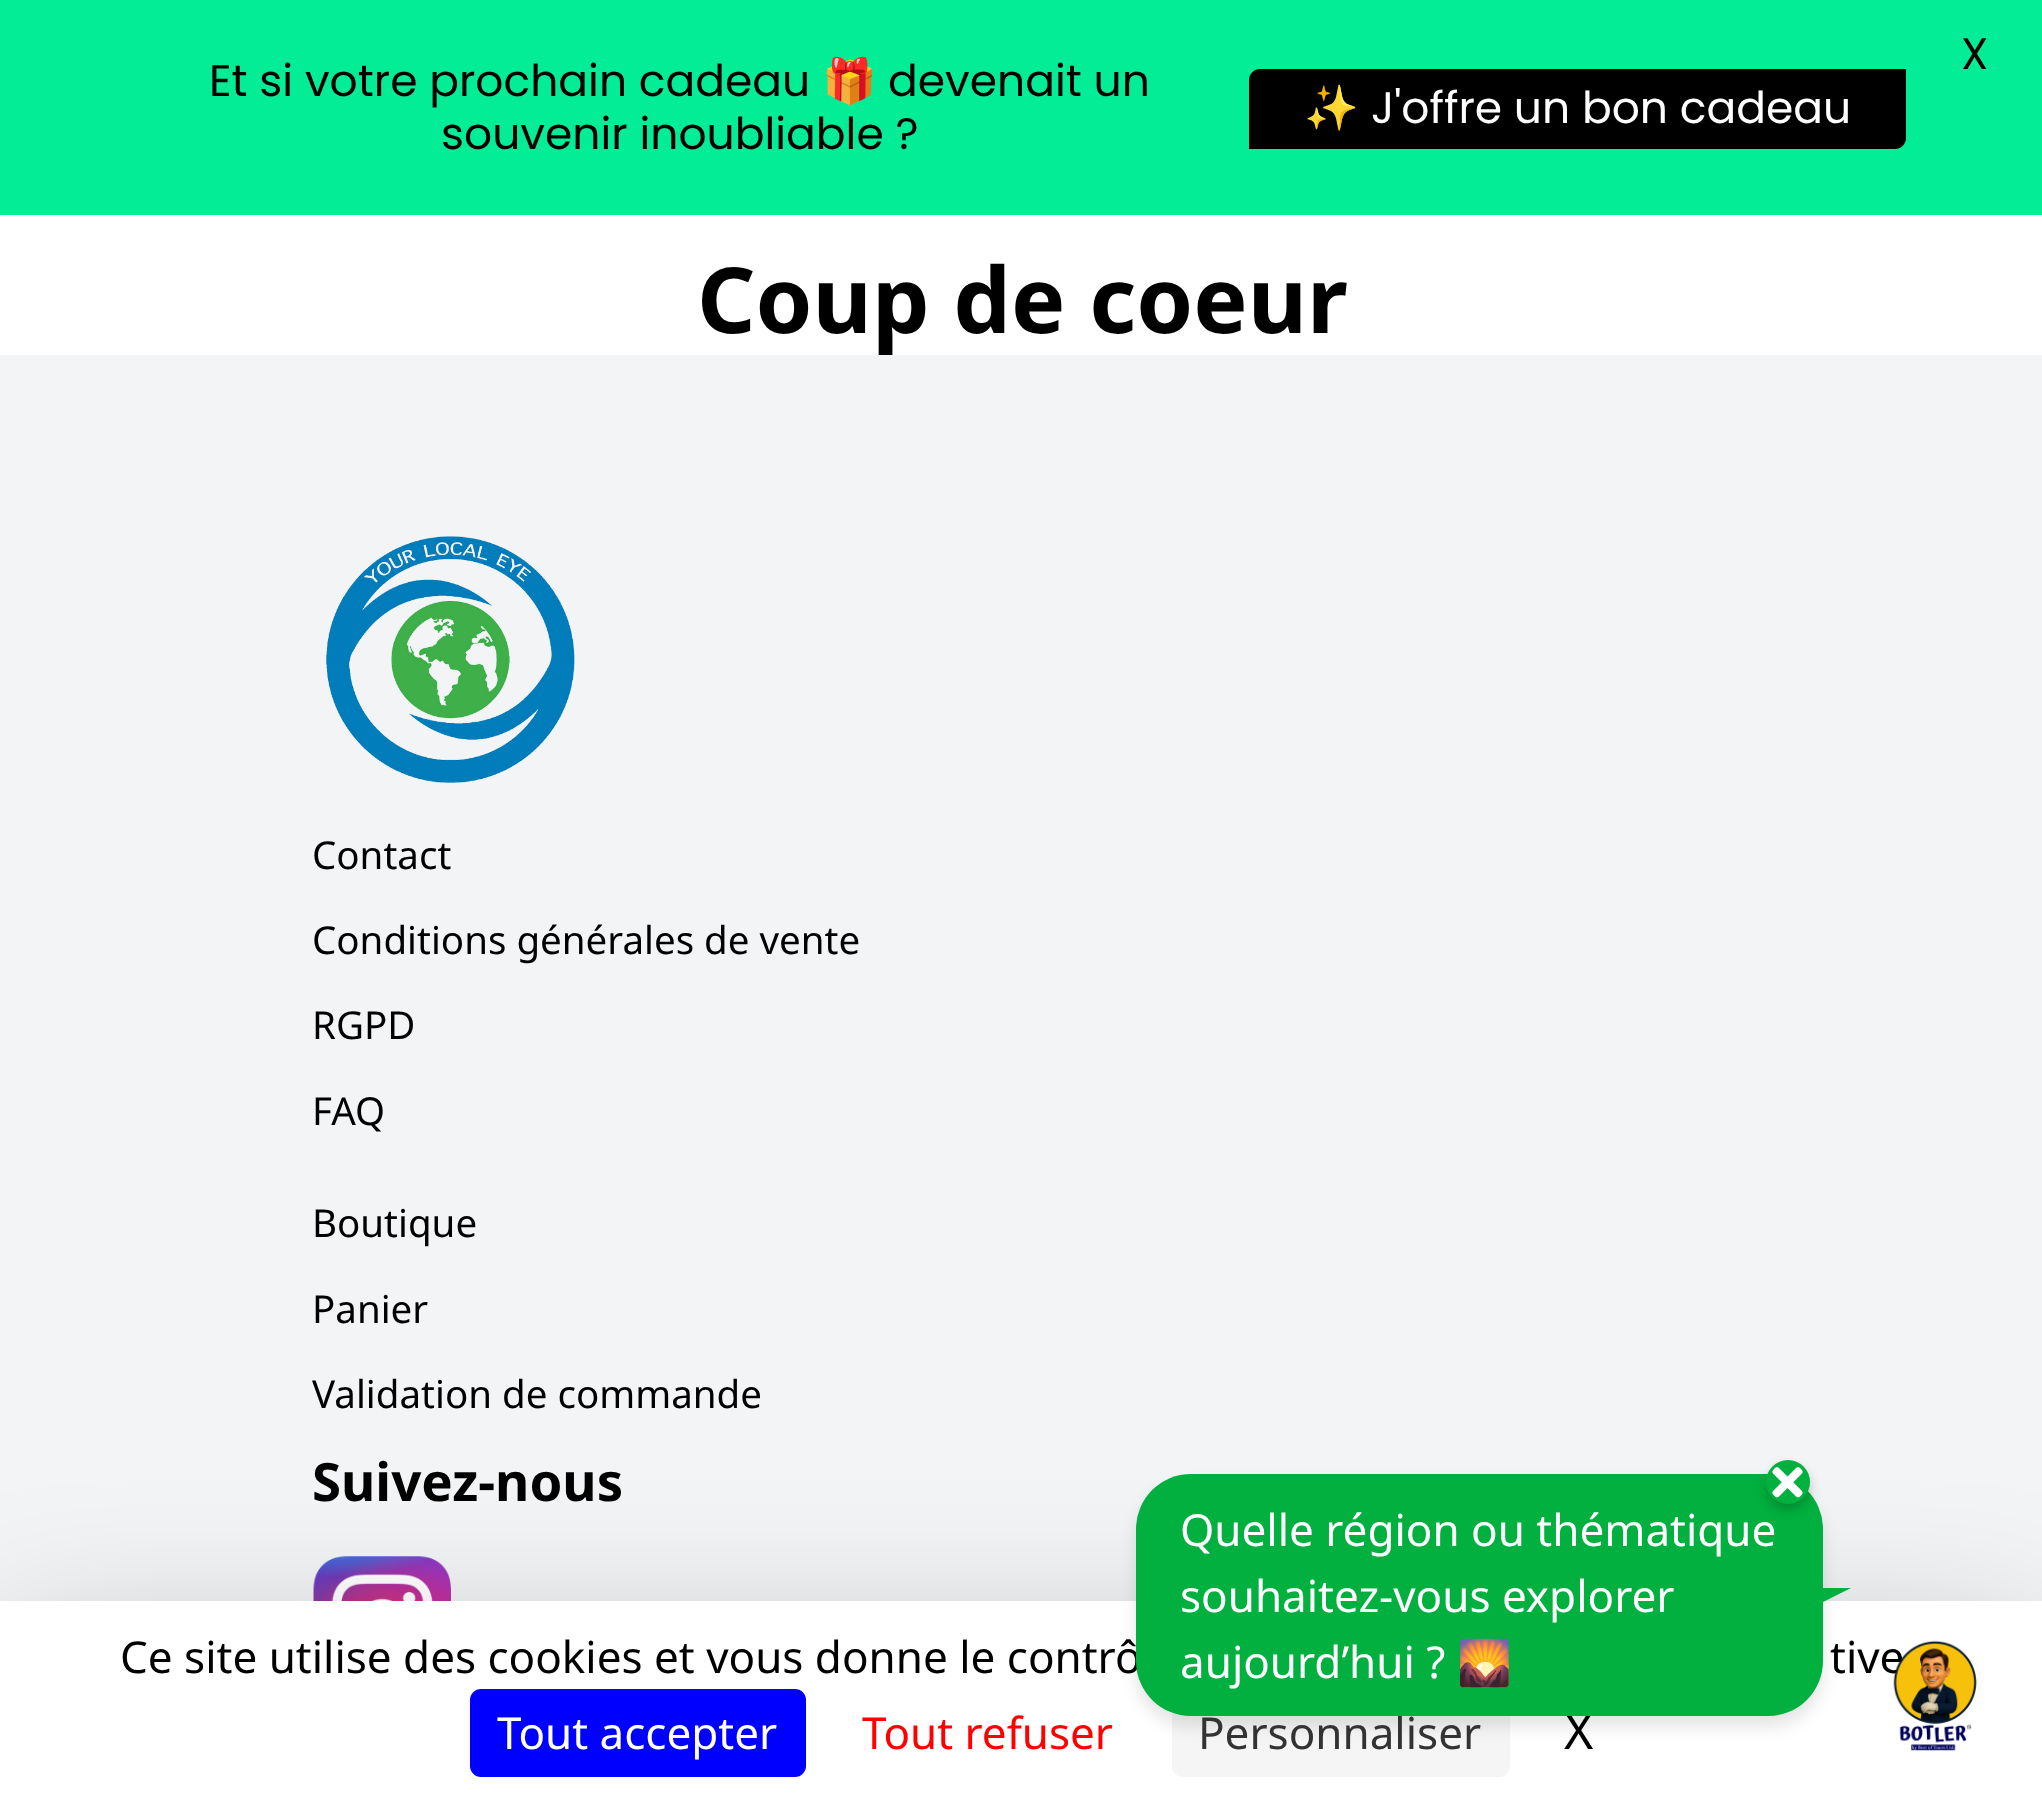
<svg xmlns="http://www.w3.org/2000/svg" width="2042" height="1803">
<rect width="100%" height="100%" fill="#fff"/>
<rect width="2042" height="215" fill="#03ed96"/>
<text x="209" y="96" style="font-family:Poppins;font-size:44px;fill:#000">Et si votre prochain cadeau</text>
<text x="822" y="96" style="font-family:Noto Color Emoji;font-size:44px;fill:#000">🎁</text>
<text x="888" y="96" style="font-family:Poppins;font-size:44px;fill:#000">devenait un</text>
<text x="441" y="149" style="font-family:Poppins;font-size:44px;fill:#000">souvenir inoubliable ?</text>
<rect x="1249" y="69" width="657" height="80" rx="11" fill="#000"/>
<rect x="1900" y="69" width="6" height="11" fill="#000"/>
<rect x="1895" y="69" width="11" height="2" fill="#000"/>
<text x="1304" y="123" style="font-family:Noto Color Emoji;font-size:44px;fill:#fff">✨</text>
<text x="1371" y="123" style="font-family:Poppins;font-size:44px;fill:#fff">J'offre un bon cadeau</text>
<rect x="1249" y="138" width="6" height="11" fill="#000"/>
<rect x="1249" y="147" width="11" height="2" fill="#000"/>
<text x="1961" y="69" style="font-family:Poppins;font-size:44px;fill:#000">X</text>
<text x="697" y="333" style="font-family:Noto Sans;font-size:91.25px;font-weight:bold;fill:#000">Coup de coeur</text>
<rect y="355" width="2042" height="1246" fill="#f2f4f6"/>
<image x="326" y="536" width="249" height="247" href="media/1.png"/>
<text x="312" y="869" style="font-family:Noto Sans;font-size:38.5px;fill:#000">Contact</text>
<text x="312" y="954" style="font-family:Noto Sans;font-size:38.5px;fill:#000">Conditions générales de vente</text>
<text x="312" y="1039" style="font-family:Noto Sans;font-size:38.5px;fill:#000">RGPD</text>
<text x="312" y="1125" style="font-family:Noto Sans;font-size:38.5px;fill:#000">FAQ</text>
<text x="312" y="1237" style="font-family:Noto Sans;font-size:38.5px;fill:#000">Boutique</text>
<text x="312" y="1323" style="font-family:Noto Sans;font-size:38.5px;fill:#000">Panier</text>
<text x="312" y="1408" style="font-family:Noto Sans;font-size:38.5px;fill:#000">Validation de commande</text>
<text x="312" y="1501" style="font-family:Noto Sans;font-size:52.75px;font-weight:bold;fill:#000">Suivez-nous</text>
<image x="313" y="1556" width="138" height="45" href="media/2.png"/>
<rect y="1656" width="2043" height="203" fill="#00000040" filter="blur(82.5px)"/>
<rect y="1601" width="2042" height="202" fill="#fff"/>
<rect x="1172" y="1689" width="338" height="88" rx="11" fill="#f5f5f5"/>
<rect x="1136" y="1485" width="687" height="242" rx="55" fill="#0000001a" filter="blur(8px)"/>
<text x="120" y="1673" style="font-family:Noto Sans;font-size:44px;fill:#000">Ce site utilise des cookies et vous donne le contrô</text>
<text x="1198" y="1749" style="font-family:Noto Sans;font-size:44px;fill:#333">Personnaliser</text>
<text x="1564" y="1749" style="font-family:Noto Sans;font-size:50px;fill:#000">X</text>
<rect x="1136" y="1474" width="687" height="242" rx="55" fill="#01b03e"/>
<rect x="1766" y="1466" width="44" height="44" rx="22" fill="#00000033" filter="blur(5.5px)"/>
<circle cx="1788" cy="1482" r="22" fill="#01b03e"/>
<image x="1772" y="1467" width="31" height="31" href="media/3.png"/>
<text x="1180" y="1546" style="font-family:Noto Sans;font-size:44px;fill:#fff">Quelle région ou thématique</text>
<text x="1180" y="1612" style="font-family:Noto Sans;font-size:44px;fill:#fff">souhaitez-vous explorer</text>
<text x="1180" y="1678" style="font-family:Noto Sans;font-size:44px;fill:#fff">aujourd’hui ?</text>
<text x="1457" y="1678" style="font-family:Noto Color Emoji;font-size:44px;fill:#fff">🌄</text>
<path d="M1796 1588h55l-28 14z" fill="#01b03e"/>
<text x="1830" y="1673" style="font-family:Noto Sans;font-size:44px;fill:#000">tive</text>
<image x="1893" y="1640" width="84" height="111" href="media/4.png"/>
<rect x="470" y="1689" width="336" height="88" rx="11" fill="#00f"/>
<text x="497" y="1749" style="font-family:Noto Sans;font-size:44px;fill:#fff">Tout accepter</text>
<text x="862" y="1749" style="font-family:Noto Sans;font-size:44px;fill:#f00">Tout refuser</text>
</svg>
